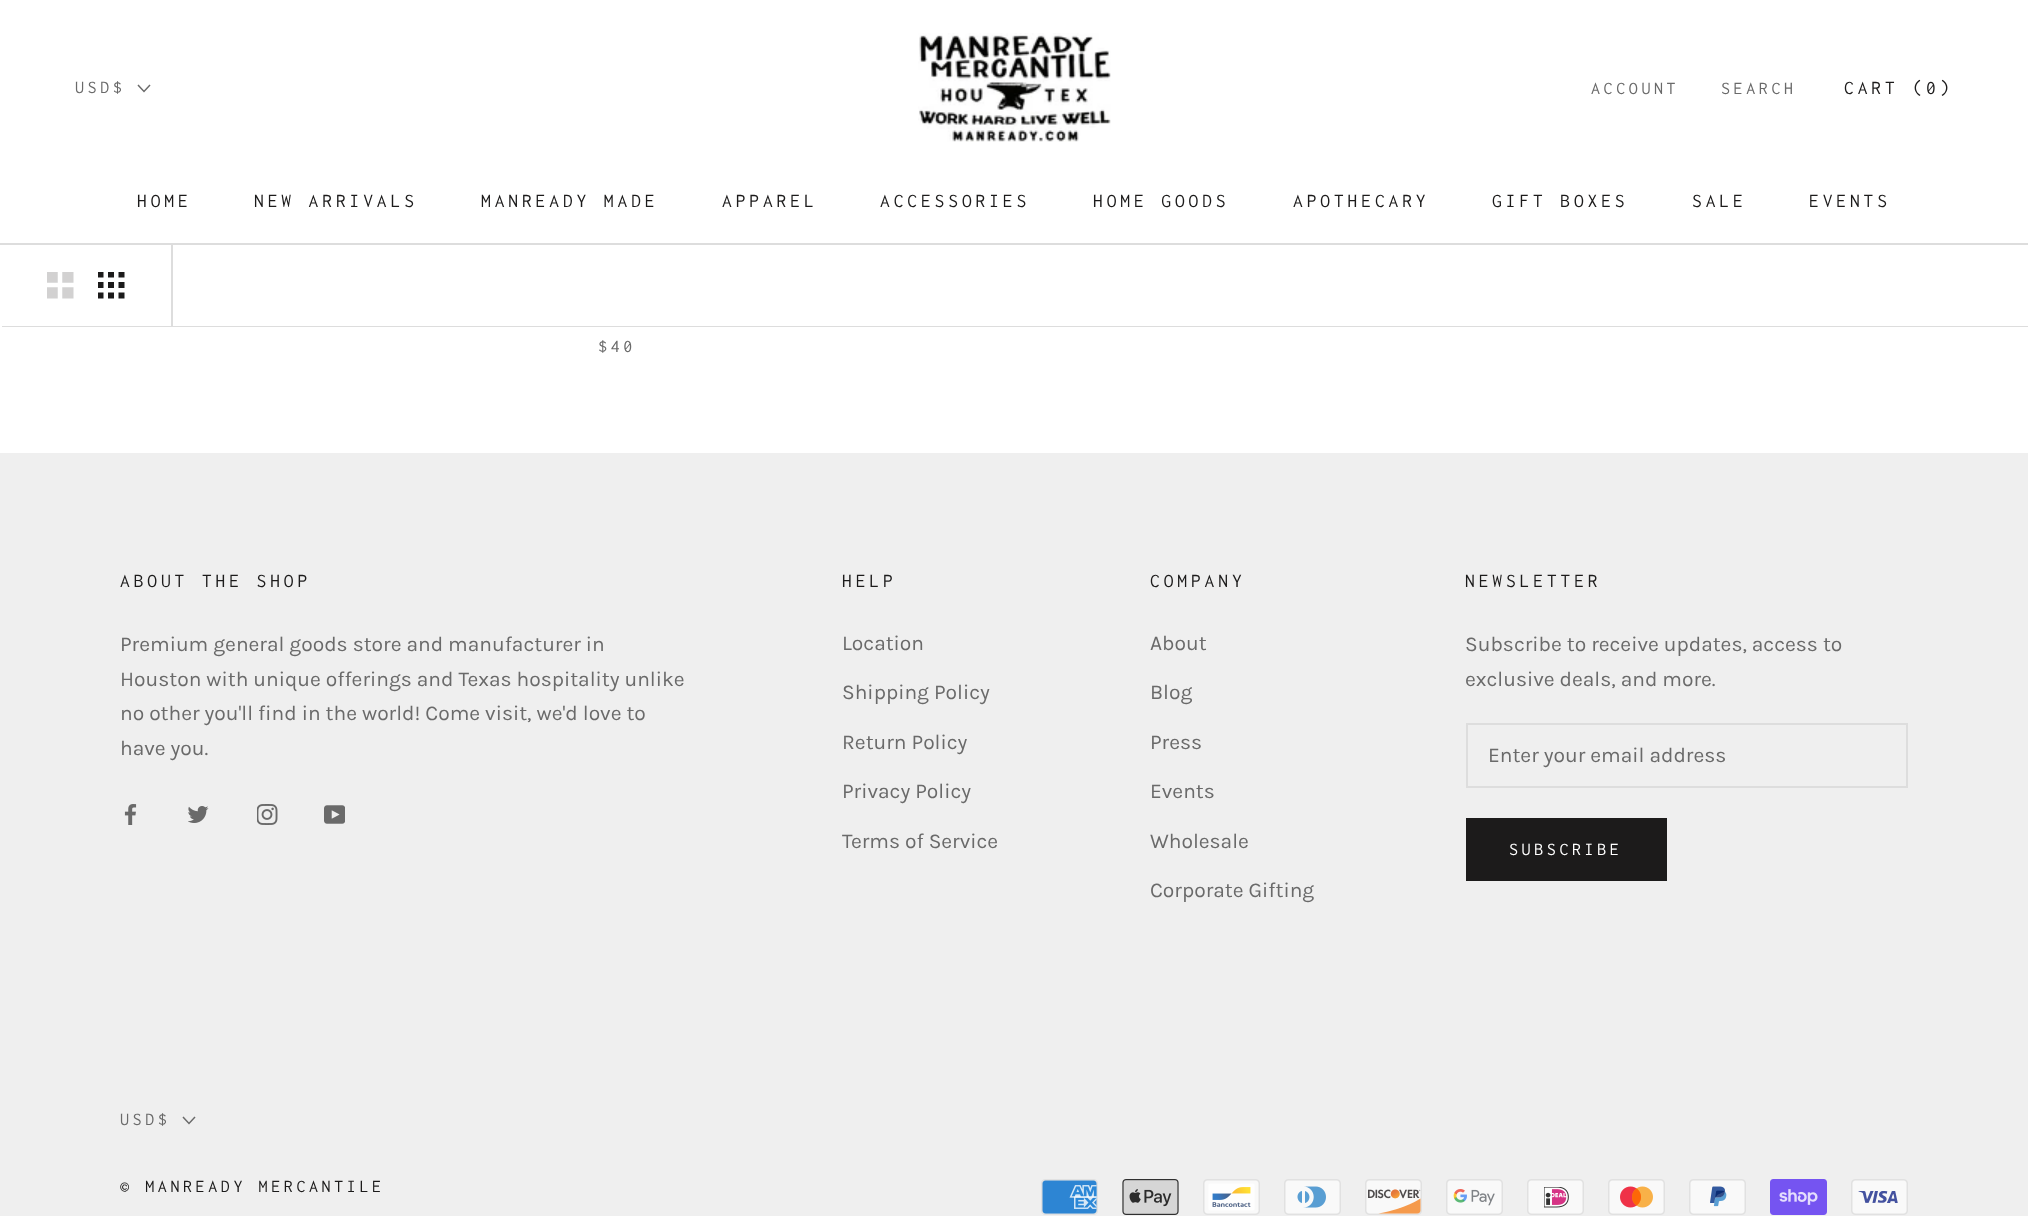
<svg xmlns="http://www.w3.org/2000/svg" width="2028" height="1216">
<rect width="100%" height="100%" fill="#fff"/>
<rect y="243" width="2028" height="2" fill="#ddd"/>
<image x="918" y="33" width="193" height="109" href="media/1.png"/>
<text x="1591" y="94" style="font-family:Inconsolata;font-size:18px;letter-spacing:3.6px;fill:#6a6a6a">ACCOUNT</text>
<text x="1721" y="94" style="font-family:Inconsolata;font-size:18px;letter-spacing:3.6px;fill:#6a6a6a">SEARCH</text>
<text x="1844" y="94" style="font-family:Inconsolata;font-size:19.5px;letter-spacing:3.9px;fill:#1c1b1b">CART (0)</text>
<text x="75" y="93" style="font-family:Inconsolata;font-size:18px;letter-spacing:3.6px;fill:#6a6a6a">USD$</text>
<path d="M149.5 85.5l-5.5 6l-5.5-6" fill="none" stroke="#6a6a6a" stroke-width="1.5" stroke-linecap="square"/>
<text x="137" y="207" style="font-family:Inconsolata;font-size:19.5px;letter-spacing:3.9px;fill:#1c1b1b">HOME</text>
<text x="254" y="207" style="font-family:Inconsolata;font-size:19.5px;letter-spacing:3.9px;fill:#1c1b1b">NEW ARRIVALS</text>
<text x="481" y="207" style="font-family:Inconsolata;font-size:19.5px;letter-spacing:3.9px;fill:#1c1b1b">MANREADY MADE</text>
<text x="722" y="207" style="font-family:Inconsolata;font-size:19.5px;letter-spacing:3.9px;fill:#1c1b1b">APPAREL</text>
<text x="880" y="207" style="font-family:Inconsolata;font-size:19.5px;letter-spacing:3.9px;fill:#1c1b1b">ACCESSORIES</text>
<text x="1093" y="207" style="font-family:Inconsolata;font-size:19.5px;letter-spacing:3.9px;fill:#1c1b1b">HOME GOODS</text>
<text x="1293" y="207" style="font-family:Inconsolata;font-size:19.5px;letter-spacing:3.9px;fill:#1c1b1b">APOTHECARY</text>
<text x="1492" y="207" style="font-family:Inconsolata;font-size:19.5px;letter-spacing:3.9px;fill:#1c1b1b">GIFT BOXES</text>
<text x="1692" y="207" style="font-family:Inconsolata;font-size:19.5px;letter-spacing:3.9px;fill:#1c1b1b">SALE</text>
<text x="1809" y="207" style="font-family:Inconsolata;font-size:19.5px;letter-spacing:3.9px;fill:#1c1b1b">EVENTS</text>
<path d="M2 326v1h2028v-81h-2v80z" fill="#ddd"/>
<rect x="171" y="245" width="2" height="81" fill="#ddd"/>
<image x="47" y="272" width="27" height="27" href="media/2.png"/>
<image x="98" y="272" width="27" height="27" href="media/3.png"/>
<text x="598" y="352" style="font-family:Inconsolata;font-size:18px;letter-spacing:3.6px;fill:#6a6a6a">$40</text>
<rect y="453" width="2028" height="763" fill="#efefef"/>
<text x="120" y="587" style="font-family:Inconsolata;font-size:19.5px;letter-spacing:3.9px;fill:#1c1b1b">ABOUT THE SHOP</text>
<text x="120" y="651" style="font-family:Karla;font-size:21px;fill:#6a6a6a">Premium general goods store and manufacturer in</text>
<text x="120" y="686" style="font-family:Karla;font-size:21px;fill:#6a6a6a">Houston with unique offerings and Texas hospitality unlike</text>
<text x="120" y="720" style="font-family:Karla;font-size:21px;fill:#6a6a6a">no other you'll find in the world! Come visit, we'd love to</text>
<text x="120" y="755" style="font-family:Karla;font-size:21px;fill:#6a6a6a">have you.</text>
<image x="124" y="804" width="13" height="21" href="media/4.png"/>
<image x="188" y="806" width="21" height="17" href="media/5.png"/>
<image x="257" y="804" width="21" height="21" href="media/6.png"/>
<image x="324" y="805" width="21" height="19" href="media/7.png"/>
<text x="842" y="587" style="font-family:Inconsolata;font-size:19.5px;letter-spacing:3.9px;fill:#1c1b1b">HELP</text>
<text x="842" y="650" style="font-family:Karla;font-size:21px;fill:#6a6a6a">Location</text>
<text x="842" y="699" style="font-family:Karla;font-size:21px;fill:#6a6a6a">Shipping Policy</text>
<text x="842" y="749" style="font-family:Karla;font-size:21px;fill:#6a6a6a">Return Policy</text>
<text x="842" y="798" style="font-family:Karla;font-size:21px;fill:#6a6a6a">Privacy Policy</text>
<text x="842" y="848" style="font-family:Karla;font-size:21px;fill:#6a6a6a">Terms of Service</text>
<text x="1150" y="587" style="font-family:Inconsolata;font-size:19.5px;letter-spacing:3.9px;fill:#1c1b1b">COMPANY</text>
<text x="1150" y="650" style="font-family:Karla;font-size:21px;fill:#6a6a6a">About</text>
<text x="1150" y="699" style="font-family:Karla;font-size:21px;fill:#6a6a6a">Blog</text>
<text x="1150" y="749" style="font-family:Karla;font-size:21px;fill:#6a6a6a">Press</text>
<text x="1150" y="798" style="font-family:Karla;font-size:21px;fill:#6a6a6a">Events</text>
<text x="1150" y="848" style="font-family:Karla;font-size:21px;fill:#6a6a6a">Wholesale</text>
<text x="1150" y="897" style="font-family:Karla;font-size:21px;fill:#6a6a6a">Corporate Gifting</text>
<text x="1465" y="587" style="font-family:Inconsolata;font-size:19.5px;letter-spacing:3.9px;fill:#1c1b1b">NEWSLETTER</text>
<text x="1465" y="651" style="font-family:Karla;font-size:21px;fill:#6a6a6a">Subscribe to receive updates, access to</text>
<text x="1465" y="686" style="font-family:Karla;font-size:21px;fill:#6a6a6a">exclusive deals, and more.</text>
<rect x="1467" y="724" width="440" height="63" fill="none" stroke="#ddd" stroke-width="2"/>
<text x="1488" y="762" style="font-family:Karla;font-size:21px;fill:#6a6a6a">Enter your email address</text>
<rect x="1467" y="819" width="199" height="61" fill="none" stroke="#1c1b1b" stroke-width="2"/>
<rect x="1468" y="820" width="197" height="59" fill="#1c1b1b"/>
<text x="1509" y="855" style="font-family:Inconsolata;font-size:18px;letter-spacing:3.6px;fill:#fff">SUBSCRIBE</text>
<text x="120" y="1125" style="font-family:Inconsolata;font-size:18px;letter-spacing:3.6px;fill:#6a6a6a">USD$</text>
<path d="M194.5 1117.5l-5.5 6l-5.5-6" fill="none" stroke="#6a6a6a" stroke-width="1.5" stroke-linecap="square"/>
<text x="120" y="1192" style="font-family:Inconsolata;font-size:18px;letter-spacing:3.6px;fill:#1c1b1b">© MANREADY MERCANTILE</text>
<image x="1041" y="1179" width="57" height="36" href="media/8.png"/>
<image x="1122" y="1179" width="57" height="36" href="media/9.png"/>
<image x="1203" y="1179" width="57" height="36" href="media/10.png"/>
<image x="1284" y="1179" width="57" height="36" href="media/11.png"/>
<image x="1365" y="1179" width="57" height="36" href="media/12.png"/>
<image x="1446" y="1179" width="57" height="36" href="media/13.png"/>
<image x="1527" y="1179" width="57" height="36" href="media/14.png"/>
<image x="1608" y="1179" width="57" height="36" href="media/15.png"/>
<image x="1689" y="1179" width="57" height="36" href="media/16.png"/>
<image x="1770" y="1179" width="57" height="36" href="media/17.png"/>
<image x="1851" y="1179" width="57" height="36" href="media/18.png"/>
</svg>
